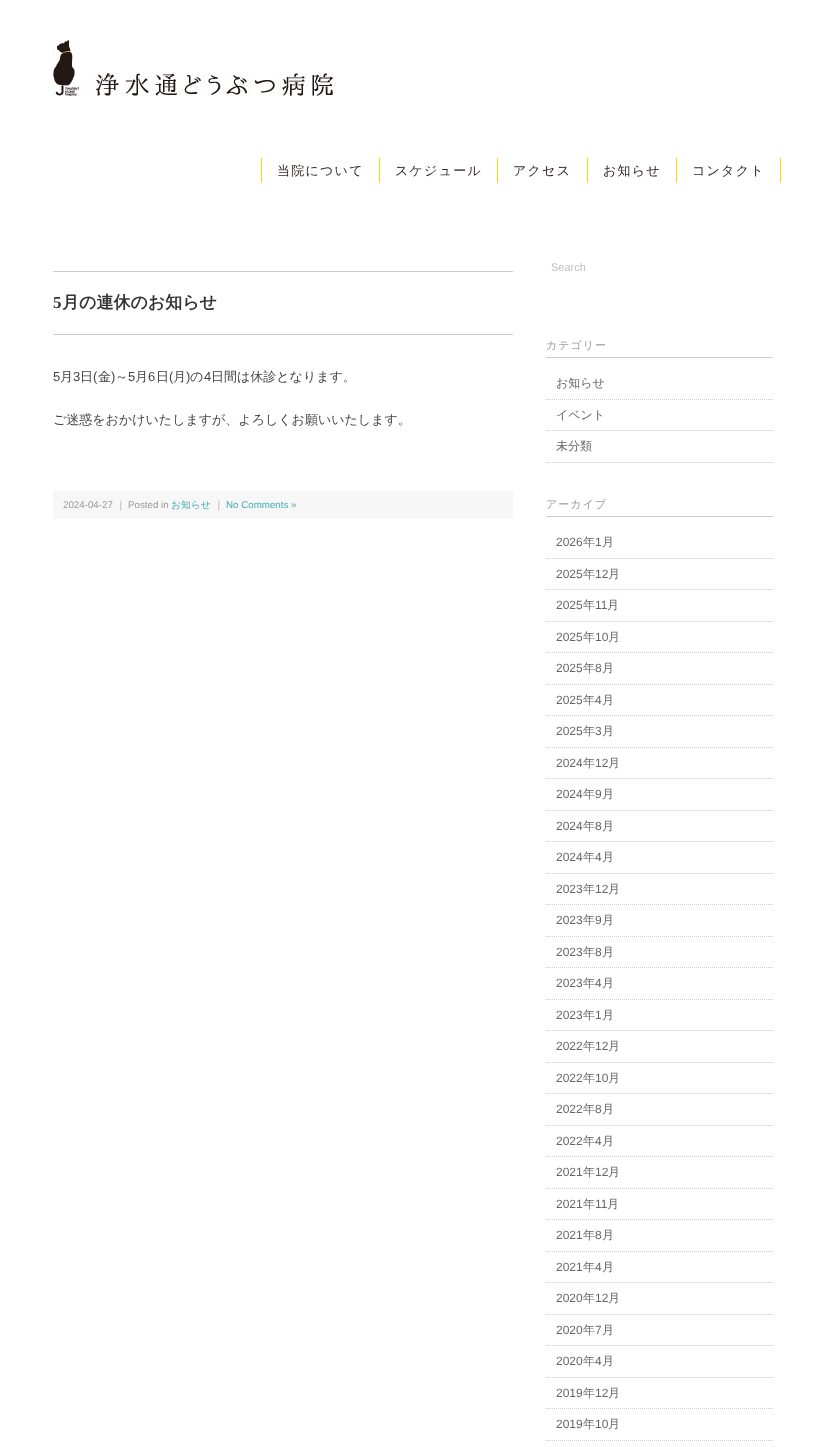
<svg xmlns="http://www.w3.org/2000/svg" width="834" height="1453">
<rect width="100%" height="100%" fill="#fff"/>
<image x="53" y="40" width="280" height="56" href="media/1.png"/>
<text x="277" y="175" style="font-family:WenQuanYi Zen Hei;font-size:13px;font-weight:500;letter-spacing:1.25px;fill:#332828">当院について</text>
<rect x="379" y="158" width="1" height="25" fill="#ffd700"/>
<rect x="261" y="158" width="1" height="25" fill="#ffd700"/>
<text x="395" y="175" style="font-family:WenQuanYi Zen Hei;font-size:13px;font-weight:500;letter-spacing:1.25px;fill:#332828">スケジュール</text>
<rect x="497" y="158" width="1" height="25" fill="#ffd700"/>
<text x="513" y="175" style="font-family:WenQuanYi Zen Hei;font-size:13px;font-weight:500;letter-spacing:1.25px;fill:#332828">アクセス</text>
<rect x="587" y="158" width="1" height="25" fill="#ffd700"/>
<text x="603" y="175" style="font-family:WenQuanYi Zen Hei;font-size:13px;font-weight:500;letter-spacing:1.25px;fill:#332828">お知らせ</text>
<rect x="676" y="158" width="1" height="25" fill="#ffd700"/>
<text x="692" y="175" style="font-family:WenQuanYi Zen Hei;font-size:13px;font-weight:500;letter-spacing:1.25px;fill:#332828">コンタクト</text>
<rect x="780" y="158" width="1" height="25" fill="#ffd700"/>
<rect x="53" y="271" width="460" height="1" fill="#ccc"/>
<rect x="53" y="334" width="460" height="1" fill="#ccc"/>
<text x="53" y="308" style="font-family:Liberation Serif;font-size:17px;font-weight:bold;fill:#333">5</text>
<text x="62" y="308" style="font-family:WenQuanYi Zen Hei;font-size:17px;font-weight:bold;fill:#333">月の連休のお知らせ</text>
<text x="53" y="381" style="font-family:Liberation Sans;font-size:13px;fill:#444">5</text>
<text x="60" y="381" style="font-family:WenQuanYi Zen Hei;font-size:13px;font-weight:500;fill:#444">月</text>
<text x="73" y="381" style="font-family:Liberation Sans;font-size:13px;fill:#444">3</text>
<text x="80" y="381" style="font-family:WenQuanYi Zen Hei;font-size:13px;font-weight:500;fill:#444">日</text>
<text x="93" y="381" style="font-family:Liberation Sans;font-size:13px;fill:#444">(</text>
<text x="98" y="381" style="font-family:WenQuanYi Zen Hei;font-size:13px;font-weight:500;fill:#444">金</text>
<text x="111" y="381" style="font-family:Liberation Sans;font-size:13px;fill:#444">)</text>
<text x="115" y="381" style="font-family:WenQuanYi Zen Hei;font-size:13px;font-weight:500;fill:#444">～</text>
<text x="128" y="381" style="font-family:Liberation Sans;font-size:13px;fill:#444">5</text>
<text x="135" y="381" style="font-family:WenQuanYi Zen Hei;font-size:13px;font-weight:500;fill:#444">月</text>
<text x="148" y="381" style="font-family:Liberation Sans;font-size:13px;fill:#444">6</text>
<text x="156" y="381" style="font-family:WenQuanYi Zen Hei;font-size:13px;font-weight:500;fill:#444">日</text>
<text x="169" y="381" style="font-family:Liberation Sans;font-size:13px;fill:#444">(</text>
<text x="173" y="381" style="font-family:WenQuanYi Zen Hei;font-size:13px;font-weight:500;fill:#444">月</text>
<text x="186" y="381" style="font-family:Liberation Sans;font-size:13px;fill:#444">)</text>
<text x="190" y="381" style="font-family:WenQuanYi Zen Hei;font-size:13px;font-weight:500;fill:#444">の</text>
<text x="204" y="381" style="font-family:Liberation Sans;font-size:13px;fill:#444">4</text>
<text x="211" y="381" style="font-family:WenQuanYi Zen Hei;font-size:13px;font-weight:500;fill:#444">日間は休診となります。</text>
<text x="53" y="424" style="font-family:WenQuanYi Zen Hei;font-size:13px;font-weight:500;fill:#444">ご迷惑をおかけいたしますが、よろしくお願いいたします。</text>
<rect x="53" y="491" width="460" height="28" fill="#f7f7f7"/>
<text x="63" y="508" style="font-family:Liberation Sans;font-size:9.75px;fill:#999">2024-04-27</text>
<text x="116" y="508" style="font-family:WenQuanYi Zen Hei;font-size:9.75px;font-weight:500;fill:#999">｜</text>
<text x="128" y="508" style="font-family:Liberation Sans;font-size:9.75px;fill:#999">Posted in</text>
<text x="171" y="508" style="font-family:WenQuanYi Zen Hei;font-size:9.75px;font-weight:500;fill:#45aab8">お知らせ</text>
<text x="214" y="508" style="font-family:WenQuanYi Zen Hei;font-size:9.75px;font-weight:500;fill:#999">｜</text>
<text x="226" y="508" style="font-family:Liberation Sans;font-size:9.75px;fill:#45aab8">No Comments »</text>
<text x="551" y="271" style="font-family:Liberation Sans;font-size:11px;fill:#c0c0c0">Search</text>
<rect x="546" y="357" width="227" height="1" fill="#ccc"/>
<text x="546" y="349" style="font-family:WenQuanYi Zen Hei;font-size:11px;font-weight:500;letter-spacing:1px;fill:#999">カテゴリー</text>
<path d="M546 399.5h227" fill="none" stroke="#ccc" stroke-dasharray="1 1"/>
<text x="556" y="387" style="font-family:WenQuanYi Zen Hei;font-size:12px;font-weight:500;fill:#666">お知らせ</text>
<path d="M546 430.5h227" fill="none" stroke="#ccc" stroke-dasharray="1 1"/>
<text x="556" y="419" style="font-family:WenQuanYi Zen Hei;font-size:12px;font-weight:500;fill:#666">イベント</text>
<path d="M546 462.5h227" fill="none" stroke="#ccc" stroke-dasharray="1 1"/>
<text x="556" y="450" style="font-family:WenQuanYi Zen Hei;font-size:12px;font-weight:500;fill:#666">未分類</text>
<rect x="546" y="516" width="227" height="1" fill="#ccc"/>
<text x="546" y="508" style="font-family:WenQuanYi Zen Hei;font-size:11px;font-weight:500;letter-spacing:1px;fill:#999">アーカイブ</text>
<path d="M546 558.5h227" fill="none" stroke="#ccc" stroke-dasharray="1 1"/>
<text x="556" y="546" style="font-family:Liberation Sans;font-size:12px;fill:#666">2026</text>
<text x="583" y="546" style="font-family:WenQuanYi Zen Hei;font-size:12px;font-weight:500;fill:#666">年</text>
<text x="595" y="546" style="font-family:Liberation Sans;font-size:12px;fill:#666">1</text>
<text x="602" y="546" style="font-family:WenQuanYi Zen Hei;font-size:12px;font-weight:500;fill:#666">月</text>
<path d="M546 589.5h227" fill="none" stroke="#ccc" stroke-dasharray="1 1"/>
<text x="556" y="578" style="font-family:Liberation Sans;font-size:12px;fill:#666">2025</text>
<text x="583" y="578" style="font-family:WenQuanYi Zen Hei;font-size:12px;font-weight:500;fill:#666">年</text>
<text x="595" y="578" style="font-family:Liberation Sans;font-size:12px;fill:#666">12</text>
<text x="608" y="578" style="font-family:WenQuanYi Zen Hei;font-size:12px;font-weight:500;fill:#666">月</text>
<path d="M546 621.5h227" fill="none" stroke="#ccc" stroke-dasharray="1 1"/>
<text x="556" y="609" style="font-family:Liberation Sans;font-size:12px;fill:#666">2025</text>
<text x="583" y="609" style="font-family:WenQuanYi Zen Hei;font-size:12px;font-weight:500;fill:#666">年</text>
<text x="595" y="609" style="font-family:Liberation Sans;font-size:12px;fill:#666">11</text>
<text x="607" y="609" style="font-family:WenQuanYi Zen Hei;font-size:12px;font-weight:500;fill:#666">月</text>
<path d="M546 652.5h227" fill="none" stroke="#ccc" stroke-dasharray="1 1"/>
<text x="556" y="641" style="font-family:Liberation Sans;font-size:12px;fill:#666">2025</text>
<text x="583" y="641" style="font-family:WenQuanYi Zen Hei;font-size:12px;font-weight:500;fill:#666">年</text>
<text x="595" y="641" style="font-family:Liberation Sans;font-size:12px;fill:#666">10</text>
<text x="608" y="641" style="font-family:WenQuanYi Zen Hei;font-size:12px;font-weight:500;fill:#666">月</text>
<path d="M546 684.5h227" fill="none" stroke="#ccc" stroke-dasharray="1 1"/>
<text x="556" y="672" style="font-family:Liberation Sans;font-size:12px;fill:#666">2025</text>
<text x="583" y="672" style="font-family:WenQuanYi Zen Hei;font-size:12px;font-weight:500;fill:#666">年</text>
<text x="595" y="672" style="font-family:Liberation Sans;font-size:12px;fill:#666">8</text>
<text x="602" y="672" style="font-family:WenQuanYi Zen Hei;font-size:12px;font-weight:500;fill:#666">月</text>
<path d="M546 715.5h227" fill="none" stroke="#ccc" stroke-dasharray="1 1"/>
<text x="556" y="704" style="font-family:Liberation Sans;font-size:12px;fill:#666">2025</text>
<text x="583" y="704" style="font-family:WenQuanYi Zen Hei;font-size:12px;font-weight:500;fill:#666">年</text>
<text x="595" y="704" style="font-family:Liberation Sans;font-size:12px;fill:#666">4</text>
<text x="602" y="704" style="font-family:WenQuanYi Zen Hei;font-size:12px;font-weight:500;fill:#666">月</text>
<path d="M546 747.5h227" fill="none" stroke="#ccc" stroke-dasharray="1 1"/>
<text x="556" y="735" style="font-family:Liberation Sans;font-size:12px;fill:#666">2025</text>
<text x="583" y="735" style="font-family:WenQuanYi Zen Hei;font-size:12px;font-weight:500;fill:#666">年</text>
<text x="595" y="735" style="font-family:Liberation Sans;font-size:12px;fill:#666">3</text>
<text x="602" y="735" style="font-family:WenQuanYi Zen Hei;font-size:12px;font-weight:500;fill:#666">月</text>
<path d="M546 778.5h227" fill="none" stroke="#ccc" stroke-dasharray="1 1"/>
<text x="556" y="767" style="font-family:Liberation Sans;font-size:12px;fill:#666">2024</text>
<text x="583" y="767" style="font-family:WenQuanYi Zen Hei;font-size:12px;font-weight:500;fill:#666">年</text>
<text x="595" y="767" style="font-family:Liberation Sans;font-size:12px;fill:#666">12</text>
<text x="608" y="767" style="font-family:WenQuanYi Zen Hei;font-size:12px;font-weight:500;fill:#666">月</text>
<path d="M546 810.5h227" fill="none" stroke="#ccc" stroke-dasharray="1 1"/>
<text x="556" y="798" style="font-family:Liberation Sans;font-size:12px;fill:#666">2024</text>
<text x="583" y="798" style="font-family:WenQuanYi Zen Hei;font-size:12px;font-weight:500;fill:#666">年</text>
<text x="595" y="798" style="font-family:Liberation Sans;font-size:12px;fill:#666">9</text>
<text x="602" y="798" style="font-family:WenQuanYi Zen Hei;font-size:12px;font-weight:500;fill:#666">月</text>
<path d="M546 841.5h227" fill="none" stroke="#ccc" stroke-dasharray="1 1"/>
<text x="556" y="830" style="font-family:Liberation Sans;font-size:12px;fill:#666">2024</text>
<text x="583" y="830" style="font-family:WenQuanYi Zen Hei;font-size:12px;font-weight:500;fill:#666">年</text>
<text x="595" y="830" style="font-family:Liberation Sans;font-size:12px;fill:#666">8</text>
<text x="602" y="830" style="font-family:WenQuanYi Zen Hei;font-size:12px;font-weight:500;fill:#666">月</text>
<path d="M546 873.5h227" fill="none" stroke="#ccc" stroke-dasharray="1 1"/>
<text x="556" y="861" style="font-family:Liberation Sans;font-size:12px;fill:#666">2024</text>
<text x="583" y="861" style="font-family:WenQuanYi Zen Hei;font-size:12px;font-weight:500;fill:#666">年</text>
<text x="595" y="861" style="font-family:Liberation Sans;font-size:12px;fill:#666">4</text>
<text x="602" y="861" style="font-family:WenQuanYi Zen Hei;font-size:12px;font-weight:500;fill:#666">月</text>
<path d="M546 904.5h227" fill="none" stroke="#ccc" stroke-dasharray="1 1"/>
<text x="556" y="893" style="font-family:Liberation Sans;font-size:12px;fill:#666">2023</text>
<text x="583" y="893" style="font-family:WenQuanYi Zen Hei;font-size:12px;font-weight:500;fill:#666">年</text>
<text x="595" y="893" style="font-family:Liberation Sans;font-size:12px;fill:#666">12</text>
<text x="608" y="893" style="font-family:WenQuanYi Zen Hei;font-size:12px;font-weight:500;fill:#666">月</text>
<path d="M546 936.5h227" fill="none" stroke="#ccc" stroke-dasharray="1 1"/>
<text x="556" y="924" style="font-family:Liberation Sans;font-size:12px;fill:#666">2023</text>
<text x="583" y="924" style="font-family:WenQuanYi Zen Hei;font-size:12px;font-weight:500;fill:#666">年</text>
<text x="595" y="924" style="font-family:Liberation Sans;font-size:12px;fill:#666">9</text>
<text x="602" y="924" style="font-family:WenQuanYi Zen Hei;font-size:12px;font-weight:500;fill:#666">月</text>
<path d="M546 967.5h227" fill="none" stroke="#ccc" stroke-dasharray="1 1"/>
<text x="556" y="956" style="font-family:Liberation Sans;font-size:12px;fill:#666">2023</text>
<text x="583" y="956" style="font-family:WenQuanYi Zen Hei;font-size:12px;font-weight:500;fill:#666">年</text>
<text x="595" y="956" style="font-family:Liberation Sans;font-size:12px;fill:#666">8</text>
<text x="602" y="956" style="font-family:WenQuanYi Zen Hei;font-size:12px;font-weight:500;fill:#666">月</text>
<path d="M546 999.5h227" fill="none" stroke="#ccc" stroke-dasharray="1 1"/>
<text x="556" y="987" style="font-family:Liberation Sans;font-size:12px;fill:#666">2023</text>
<text x="583" y="987" style="font-family:WenQuanYi Zen Hei;font-size:12px;font-weight:500;fill:#666">年</text>
<text x="595" y="987" style="font-family:Liberation Sans;font-size:12px;fill:#666">4</text>
<text x="602" y="987" style="font-family:WenQuanYi Zen Hei;font-size:12px;font-weight:500;fill:#666">月</text>
<path d="M546 1030.5h227" fill="none" stroke="#ccc" stroke-dasharray="1 1"/>
<text x="556" y="1019" style="font-family:Liberation Sans;font-size:12px;fill:#666">2023</text>
<text x="583" y="1019" style="font-family:WenQuanYi Zen Hei;font-size:12px;font-weight:500;fill:#666">年</text>
<text x="595" y="1019" style="font-family:Liberation Sans;font-size:12px;fill:#666">1</text>
<text x="602" y="1019" style="font-family:WenQuanYi Zen Hei;font-size:12px;font-weight:500;fill:#666">月</text>
<path d="M546 1062.5h227" fill="none" stroke="#ccc" stroke-dasharray="1 1"/>
<text x="556" y="1050" style="font-family:Liberation Sans;font-size:12px;fill:#666">2022</text>
<text x="583" y="1050" style="font-family:WenQuanYi Zen Hei;font-size:12px;font-weight:500;fill:#666">年</text>
<text x="595" y="1050" style="font-family:Liberation Sans;font-size:12px;fill:#666">12</text>
<text x="608" y="1050" style="font-family:WenQuanYi Zen Hei;font-size:12px;font-weight:500;fill:#666">月</text>
<path d="M546 1093.5h227" fill="none" stroke="#ccc" stroke-dasharray="1 1"/>
<text x="556" y="1082" style="font-family:Liberation Sans;font-size:12px;fill:#666">2022</text>
<text x="583" y="1082" style="font-family:WenQuanYi Zen Hei;font-size:12px;font-weight:500;fill:#666">年</text>
<text x="595" y="1082" style="font-family:Liberation Sans;font-size:12px;fill:#666">10</text>
<text x="608" y="1082" style="font-family:WenQuanYi Zen Hei;font-size:12px;font-weight:500;fill:#666">月</text>
<path d="M546 1125.5h227" fill="none" stroke="#ccc" stroke-dasharray="1 1"/>
<text x="556" y="1113" style="font-family:Liberation Sans;font-size:12px;fill:#666">2022</text>
<text x="583" y="1113" style="font-family:WenQuanYi Zen Hei;font-size:12px;font-weight:500;fill:#666">年</text>
<text x="595" y="1113" style="font-family:Liberation Sans;font-size:12px;fill:#666">8</text>
<text x="602" y="1113" style="font-family:WenQuanYi Zen Hei;font-size:12px;font-weight:500;fill:#666">月</text>
<path d="M546 1156.5h227" fill="none" stroke="#ccc" stroke-dasharray="1 1"/>
<text x="556" y="1145" style="font-family:Liberation Sans;font-size:12px;fill:#666">2022</text>
<text x="583" y="1145" style="font-family:WenQuanYi Zen Hei;font-size:12px;font-weight:500;fill:#666">年</text>
<text x="595" y="1145" style="font-family:Liberation Sans;font-size:12px;fill:#666">4</text>
<text x="602" y="1145" style="font-family:WenQuanYi Zen Hei;font-size:12px;font-weight:500;fill:#666">月</text>
<path d="M546 1188.5h227" fill="none" stroke="#ccc" stroke-dasharray="1 1"/>
<text x="556" y="1176" style="font-family:Liberation Sans;font-size:12px;fill:#666">2021</text>
<text x="583" y="1176" style="font-family:WenQuanYi Zen Hei;font-size:12px;font-weight:500;fill:#666">年</text>
<text x="595" y="1176" style="font-family:Liberation Sans;font-size:12px;fill:#666">12</text>
<text x="608" y="1176" style="font-family:WenQuanYi Zen Hei;font-size:12px;font-weight:500;fill:#666">月</text>
<path d="M546 1219.5h227" fill="none" stroke="#ccc" stroke-dasharray="1 1"/>
<text x="556" y="1208" style="font-family:Liberation Sans;font-size:12px;fill:#666">2021</text>
<text x="583" y="1208" style="font-family:WenQuanYi Zen Hei;font-size:12px;font-weight:500;fill:#666">年</text>
<text x="595" y="1208" style="font-family:Liberation Sans;font-size:12px;fill:#666">11</text>
<text x="607" y="1208" style="font-family:WenQuanYi Zen Hei;font-size:12px;font-weight:500;fill:#666">月</text>
<path d="M546 1251.5h227" fill="none" stroke="#ccc" stroke-dasharray="1 1"/>
<text x="556" y="1239" style="font-family:Liberation Sans;font-size:12px;fill:#666">2021</text>
<text x="583" y="1239" style="font-family:WenQuanYi Zen Hei;font-size:12px;font-weight:500;fill:#666">年</text>
<text x="595" y="1239" style="font-family:Liberation Sans;font-size:12px;fill:#666">8</text>
<text x="602" y="1239" style="font-family:WenQuanYi Zen Hei;font-size:12px;font-weight:500;fill:#666">月</text>
<path d="M546 1282.5h227" fill="none" stroke="#ccc" stroke-dasharray="1 1"/>
<text x="556" y="1271" style="font-family:Liberation Sans;font-size:12px;fill:#666">2021</text>
<text x="583" y="1271" style="font-family:WenQuanYi Zen Hei;font-size:12px;font-weight:500;fill:#666">年</text>
<text x="595" y="1271" style="font-family:Liberation Sans;font-size:12px;fill:#666">4</text>
<text x="602" y="1271" style="font-family:WenQuanYi Zen Hei;font-size:12px;font-weight:500;fill:#666">月</text>
<path d="M546 1314.5h227" fill="none" stroke="#ccc" stroke-dasharray="1 1"/>
<text x="556" y="1302" style="font-family:Liberation Sans;font-size:12px;fill:#666">2020</text>
<text x="583" y="1302" style="font-family:WenQuanYi Zen Hei;font-size:12px;font-weight:500;fill:#666">年</text>
<text x="595" y="1302" style="font-family:Liberation Sans;font-size:12px;fill:#666">12</text>
<text x="608" y="1302" style="font-family:WenQuanYi Zen Hei;font-size:12px;font-weight:500;fill:#666">月</text>
<path d="M546 1345.5h227" fill="none" stroke="#ccc" stroke-dasharray="1 1"/>
<text x="556" y="1334" style="font-family:Liberation Sans;font-size:12px;fill:#666">2020</text>
<text x="583" y="1334" style="font-family:WenQuanYi Zen Hei;font-size:12px;font-weight:500;fill:#666">年</text>
<text x="595" y="1334" style="font-family:Liberation Sans;font-size:12px;fill:#666">7</text>
<text x="602" y="1334" style="font-family:WenQuanYi Zen Hei;font-size:12px;font-weight:500;fill:#666">月</text>
<path d="M546 1377.5h227" fill="none" stroke="#ccc" stroke-dasharray="1 1"/>
<text x="556" y="1365" style="font-family:Liberation Sans;font-size:12px;fill:#666">2020</text>
<text x="583" y="1365" style="font-family:WenQuanYi Zen Hei;font-size:12px;font-weight:500;fill:#666">年</text>
<text x="595" y="1365" style="font-family:Liberation Sans;font-size:12px;fill:#666">4</text>
<text x="602" y="1365" style="font-family:WenQuanYi Zen Hei;font-size:12px;font-weight:500;fill:#666">月</text>
<path d="M546 1408.5h227" fill="none" stroke="#ccc" stroke-dasharray="1 1"/>
<text x="556" y="1397" style="font-family:Liberation Sans;font-size:12px;fill:#666">2019</text>
<text x="583" y="1397" style="font-family:WenQuanYi Zen Hei;font-size:12px;font-weight:500;fill:#666">年</text>
<text x="595" y="1397" style="font-family:Liberation Sans;font-size:12px;fill:#666">12</text>
<text x="608" y="1397" style="font-family:WenQuanYi Zen Hei;font-size:12px;font-weight:500;fill:#666">月</text>
<path d="M546 1440.5h227" fill="none" stroke="#ccc" stroke-dasharray="1 1"/>
<text x="556" y="1428" style="font-family:Liberation Sans;font-size:12px;fill:#666">2019</text>
<text x="583" y="1428" style="font-family:WenQuanYi Zen Hei;font-size:12px;font-weight:500;fill:#666">年</text>
<text x="595" y="1428" style="font-family:Liberation Sans;font-size:12px;fill:#666">10</text>
<text x="608" y="1428" style="font-family:WenQuanYi Zen Hei;font-size:12px;font-weight:500;fill:#666">月</text>
</svg>
